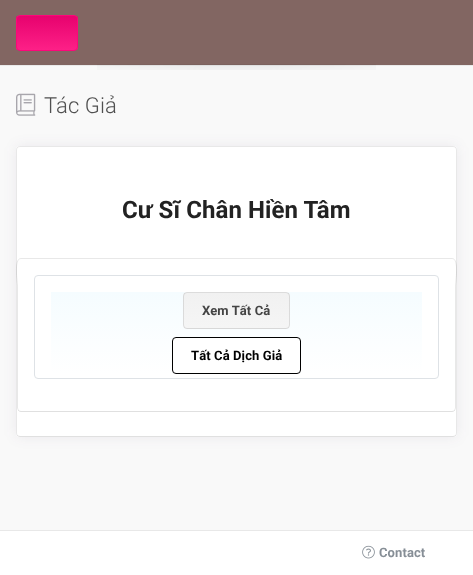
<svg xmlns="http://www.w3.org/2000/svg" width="473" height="575">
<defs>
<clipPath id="clip1"><rect x="16" y="15" width="62" height="36" rx="4"/></clipPath>
<linearGradient id="g1" gradientUnits="userSpaceOnUse" x1="47" y1="50" x2="47" y2="16"><stop offset="0" stop-color="#fd2087"/><stop offset="1" stop-color="#e7026e"/></linearGradient>
<linearGradient id="g2" gradientUnits="userSpaceOnUse" x1="237" y1="374" x2="237" y2="292"><stop offset="0" stop-color="#fff"/><stop offset="1" stop-color="#f5fcff"/></linearGradient>
<clipPath id="clip2"><rect x="183" y="292" width="107" height="37" rx="4"/></clipPath>
<linearGradient id="g3" gradientUnits="userSpaceOnUse" x1="237" y1="293" x2="237" y2="258"><stop offset="0" stop-color="#f5f5f5"/><stop offset="1" stop-color="#f1f1f1"/></linearGradient>
<linearGradient id="g4" gradientUnits="userSpaceOnUse" x1="237" y1="328" x2="237" y2="293"><stop offset="0" stop-color="#f5f5f5"/><stop offset="1" stop-color="#f1f1f1"/></linearGradient>
<linearGradient id="g5" gradientUnits="userSpaceOnUse" x1="237" y1="363" x2="237" y2="328"><stop offset="0" stop-color="#f5f5f5"/><stop offset="1" stop-color="#f1f1f1"/></linearGradient>
</defs>
<rect width="100%" height="100%" fill="#f9f9f9"/>
<rect width="473" height="65" fill="#826662"/>
<rect y="65" width="473" height="1" fill="#eaeaea"/>
<g clip-path="url(#clip1)">
<rect x="16" y="16" width="62" height="34" fill="url(#g1)"/>
</g>
<rect x="16.5" y="15.5" width="61" height="35" rx="3.5" fill="none" stroke="#fc077a"/>
<image x="97" y="64" width="279" height="6" href="media/1.png"/>
<image x="16" y="93" width="20" height="23" href="media/2.png"/>
<text x="44" y="113" style="font-family:Roboto;font-size:22px;font-weight:300;letter-spacing:0.1px;fill:#505050">Tác Giả</text>
<rect x="16" y="146" width="441" height="291" rx="4" fill="#3e2c5a14" filter="blur(6.5px)"/>
<rect x="16" y="146" width="441" height="291" rx="4" fill="#fff"/>
<path d="M455.5 435.5c-.5 .5-1.5 1-2.5 1h-433c-1 0-2-.5-2.5-1" fill="none" stroke="#e0e0e0"/>
<path d="M17.5 435.5c-.5-.5-1-1.5-1-2.5v-283c0-1 .5-2 1-2.5c.5-.5 1.5-1 2.5-1h433c1 0 2 .5 2.5 1c.5 .5 1 1.5 1 2.5v283c0 1-.5 2-1 2.5" fill="none" stroke="#00000017"/>
<text x="122" y="218" style="font-family:Roboto;font-size:24px;font-weight:bold;letter-spacing:0.1px;fill:#222">Cư Sĩ Chân Hiền Tâm</text>
<path d="M454.5 410.5c-.5 .5-1.5 1-2.5 1h-431c-1 0-2-.5-2.5-1" fill="none" stroke="#e0e0e0"/>
<path d="M18.5 410.5l-1-2.5v-121.5c0-5-4-28 3.5-28h431c7.5 0 3.5 23 3.5 28v121.5l-1 2.5" fill="none" stroke="#00000017"/>
<rect x="34.5" y="275.5" width="404" height="103" rx="3.5" fill="none" stroke="#dee2e6"/>
<path d="M51 292h371v78c0 2-2 4-4 4h-363c-2 0-4-2-4-4z" fill="url(#g2)"/>
<g clip-path="url(#clip2)">
<rect x="183" y="292" width="107" height="1" fill="url(#g3)"/>
<rect x="183" y="293" width="107" height="35" fill="url(#g4)"/>
<rect x="183" y="328" width="107" height="1" fill="url(#g5)"/>
</g>
<rect x="183.5" y="292.5" width="106" height="36" rx="3.5" fill="none" stroke="#0000001a"/>
<text x="202" y="315" style="font-family:Roboto;font-size:13px;font-weight:bold;letter-spacing:0.1px;fill:#444">Xem Tất Cả</text>
<rect x="172.5" y="337.5" width="128" height="36" rx="3.5" fill="#fff" stroke="#000"/>
<text x="191" y="360" style="font-family:Roboto;font-size:13px;font-weight:bold;letter-spacing:0.1px;fill:#000">Tất Cả Dịch Giả</text>
<rect y="531" width="473" height="44" fill="#fff"/>
<rect y="530" width="473" height="1" fill="#e8e8e8"/>
<image x="362" y="545" width="13" height="14" href="media/3.png"/>
<text x="379" y="557" style="font-family:Roboto;font-size:13px;font-weight:bold;letter-spacing:0.1px;fill:#868e96">Contact</text>
</svg>
